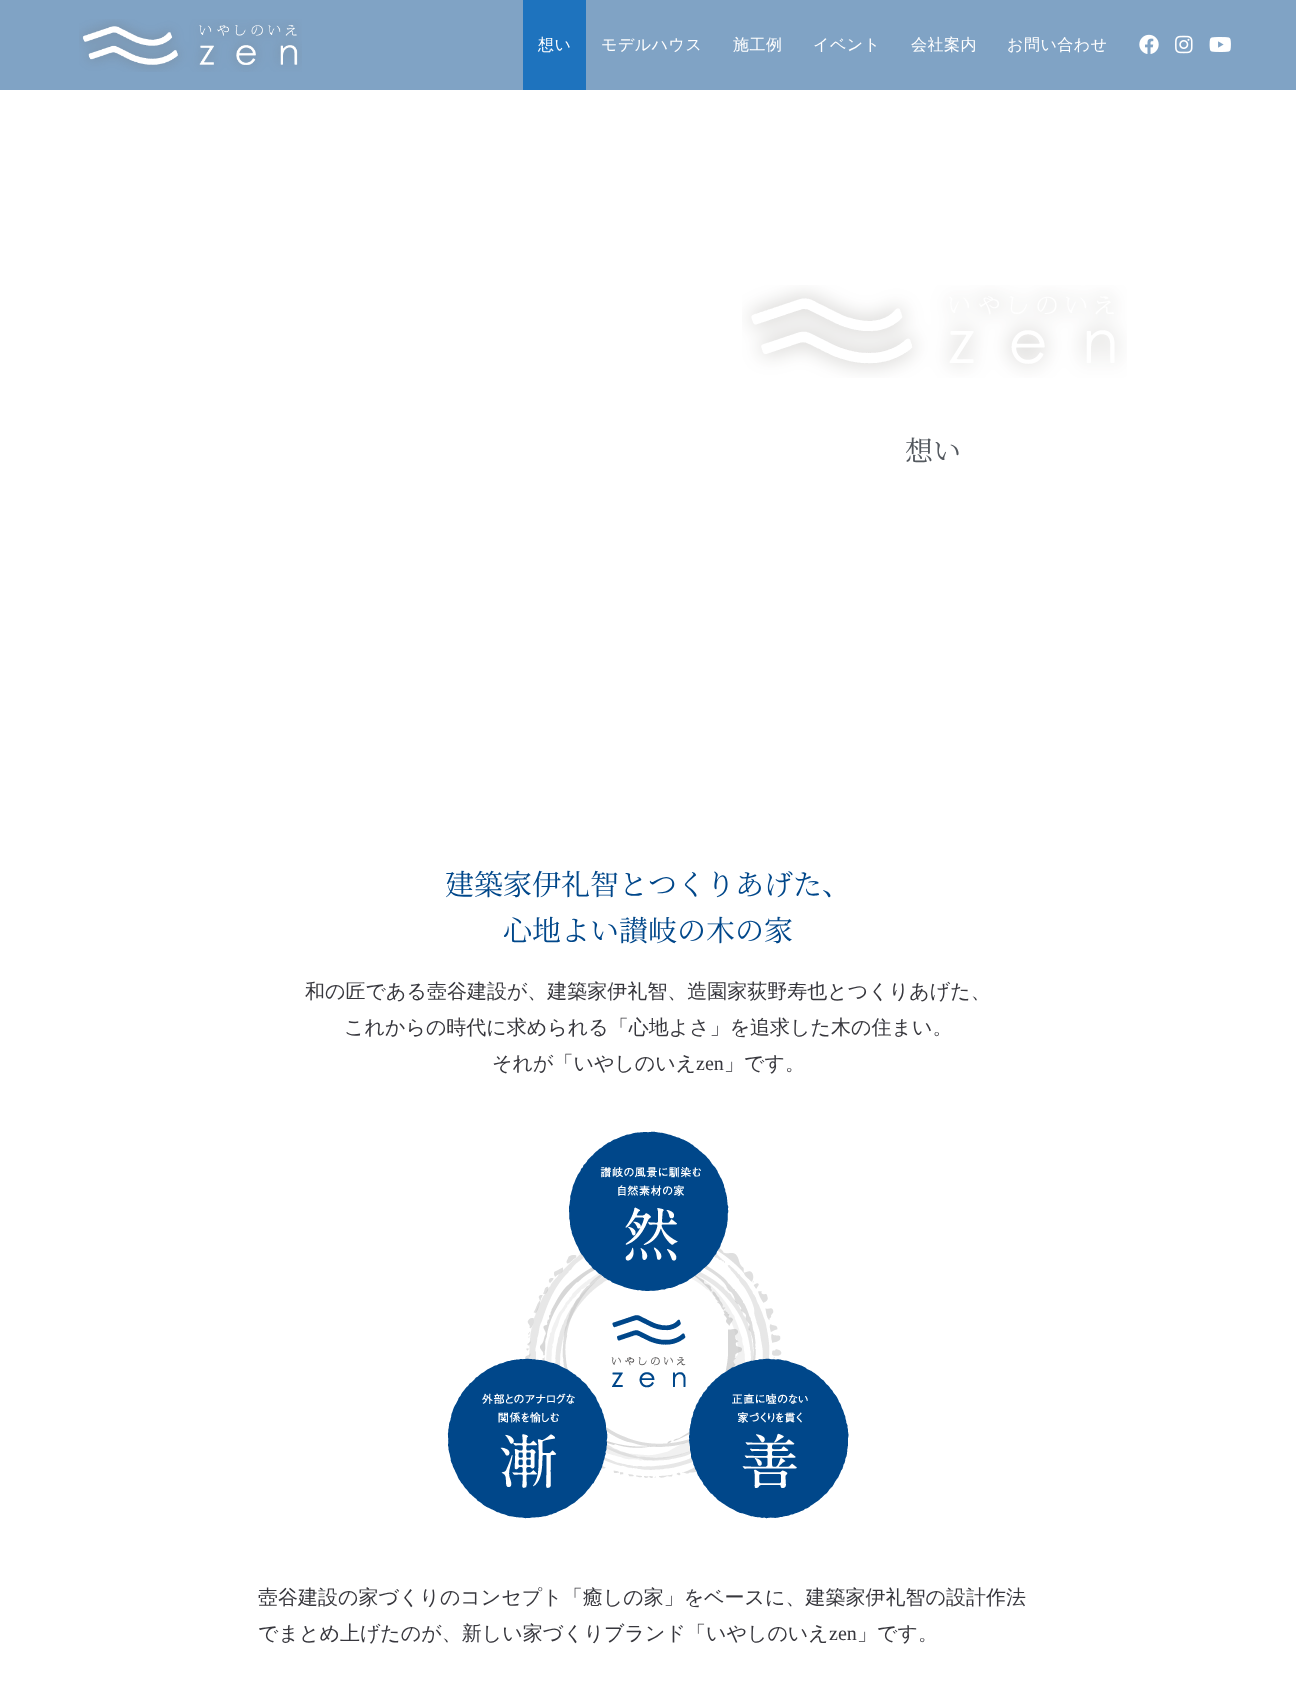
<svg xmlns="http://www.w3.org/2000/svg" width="1296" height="1706">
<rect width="100%" height="100%" fill="#fff"/>
<rect width="1296" height="90" fill="#80a3c5"/>
<image x="79" y="19" width="223" height="53" href="media/1.png"/>
<rect x="523" width="63" height="90" fill="#1e73be"/>
<text x="538" y="50" style="font-family:WenQuanYi Zen Hei;font-size:16px;font-weight:500;letter-spacing:0.5px;fill:#fff">想い</text>
<text x="601" y="50" style="font-family:WenQuanYi Zen Hei;font-size:16px;font-weight:500;letter-spacing:0.5px;fill:#fff">モデルハウス</text>
<text x="733" y="50" style="font-family:WenQuanYi Zen Hei;font-size:16px;font-weight:500;letter-spacing:0.5px;fill:#fff">施工例</text>
<text x="813" y="50" style="font-family:WenQuanYi Zen Hei;font-size:16px;font-weight:500;letter-spacing:0.5px;fill:#fff">イベント</text>
<text x="911" y="50" style="font-family:WenQuanYi Zen Hei;font-size:16px;font-weight:500;letter-spacing:0.5px;fill:#fff">会社案内</text>
<text x="1007" y="50" style="font-family:WenQuanYi Zen Hei;font-size:16px;font-weight:500;letter-spacing:0.5px;fill:#fff">お問い合わせ</text>
<image x="1139" y="34" width="20" height="20" href="media/2.png"/>
<image x="1175" y="35" width="18" height="19" href="media/3.png"/>
<image x="1209" y="37" width="22" height="15" href="media/4.png"/>
<image x="742" y="285" width="385" height="93" href="media/5.png"/>
<text x="905" y="461" style="font-family:Noto Serif JP;font-size:28px;fill:#54595f">想い</text>
<text x="445" y="895" style="font-family:Noto Serif JP;font-size:29px;fill:#00478a">建築家伊礼智と</text>
<text x="648" y="895" style="font-family:Noto Serif JP;font-size:29px;fill:#00478a">つくりあげた、</text>
<text x="503" y="941" style="font-family:Noto Serif JP;font-size:29px;fill:#00478a">心地よい讃岐の木の家</text>
<text x="305" y="998" style="font-family:WenQuanYi Zen Hei;font-size:20px;font-weight:500;fill:#37373d">和の匠である壺⾕建設が、建築家伊礼智、造園家荻野寿也とつくりあげた、</text>
<text x="344" y="1034" style="font-family:WenQuanYi Zen Hei;font-size:20px;font-weight:500;fill:#37373d">これからの時代に求められる「⼼地よさ」を追求した⽊の住まい。</text>
<text x="492" y="1070" style="font-family:WenQuanYi Zen Hei;font-size:20px;font-weight:500;fill:#37373d">それが「いやしのいえ</text>
<text x="696" y="1070" style="font-family:Liberation Serif;font-size:20px;fill:#37373d">zen</text>
<text x="724" y="1070" style="font-family:WenQuanYi Zen Hei;font-size:20px;font-weight:500;fill:#37373d">」です。</text>
<image x="447" y="1131" width="402" height="388" href="media/6.png"/>
<text x="258" y="1604" style="font-family:WenQuanYi Zen Hei;font-size:20px;font-weight:500;fill:#37373d">壺谷建設の家づくりのコンセプト「癒しの家」をベースに、建築家伊礼智の設計作法</text>
<text x="258" y="1640" style="font-family:WenQuanYi Zen Hei;font-size:20px;font-weight:500;fill:#37373d">でまとめ上げたのが、新しい家づくりブランド「いやしのいえ</text>
<text x="829" y="1640" style="font-family:Liberation Serif;font-size:20px;fill:#37373d">zen</text>
<text x="857" y="1640" style="font-family:WenQuanYi Zen Hei;font-size:20px;font-weight:500;fill:#37373d">」です。</text>
</svg>
